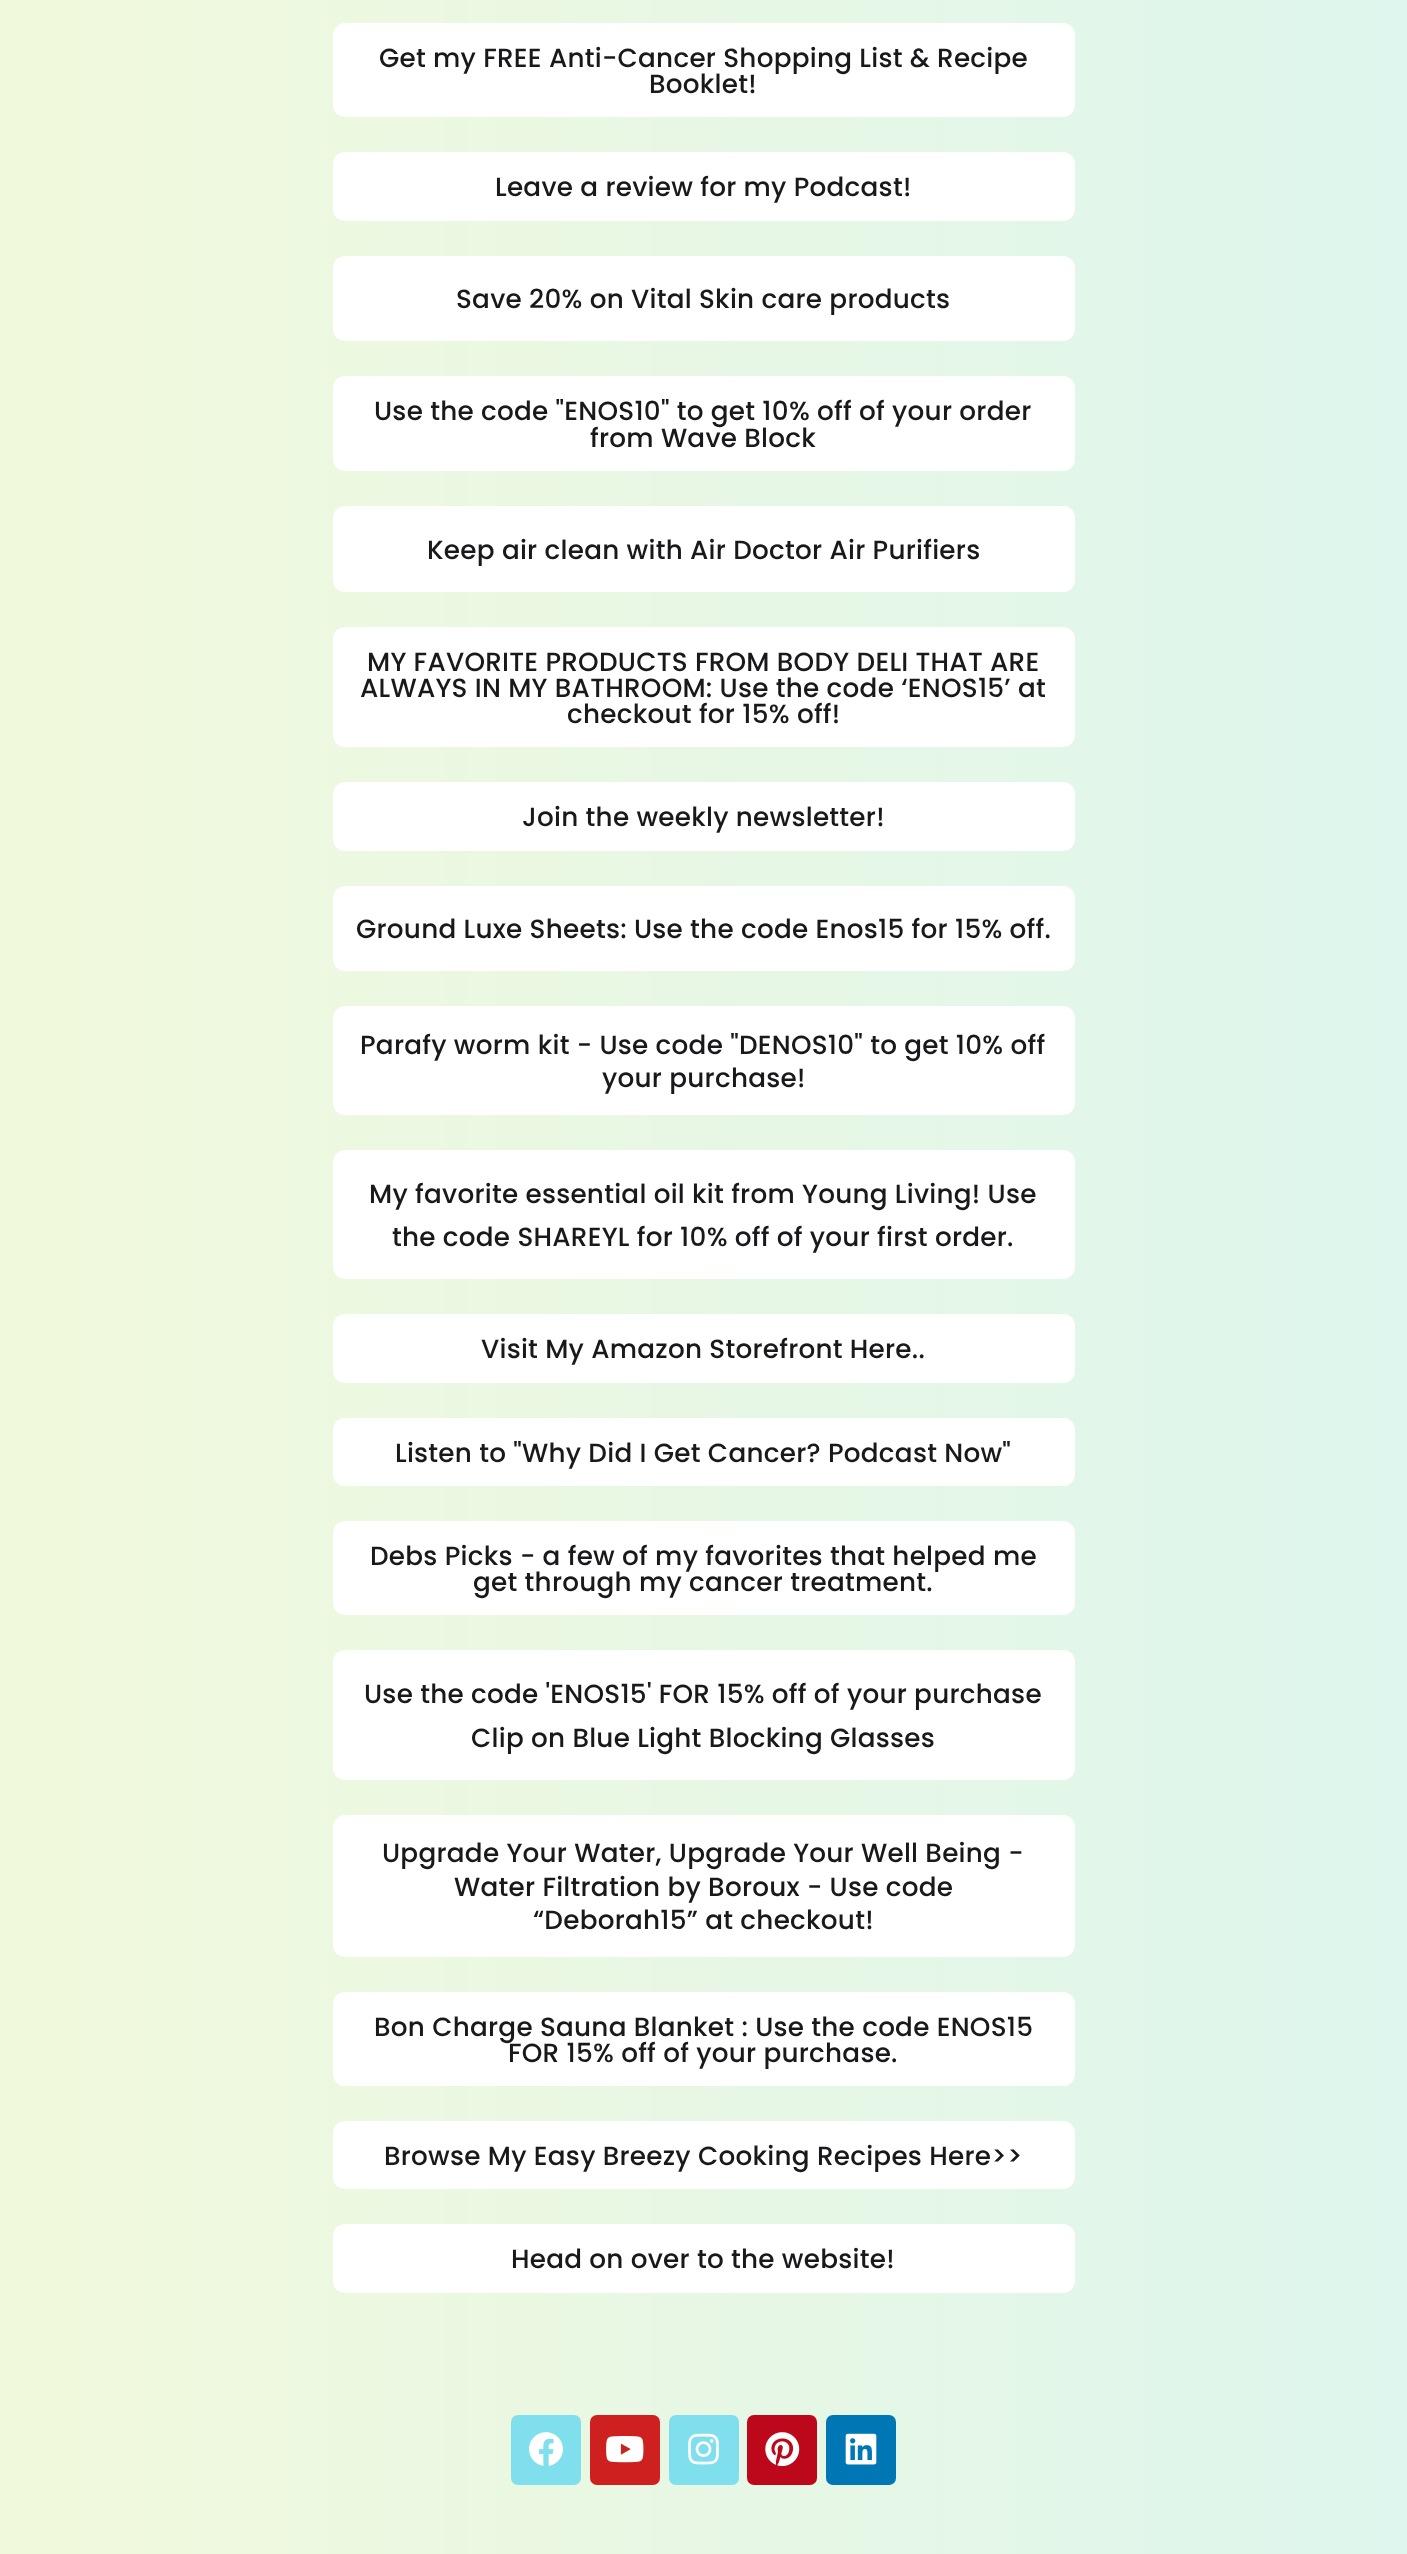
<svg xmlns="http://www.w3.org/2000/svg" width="1407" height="2554">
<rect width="100%" height="100%" fill="#fff"/>
<image x="0" y="0" width="1407" height="2554" href="media/1.png"/>
<rect x="333" y="23" width="742" height="94" rx="12" fill="#fff"/>
<text x="379" y="67" style="font-family:Poppins;font-size:26.25px;font-weight:500;letter-spacing:0.25px;fill:#18191a">Get my FREE Anti-Cancer Shopping List &amp; Recipe</text>
<text x="649" y="93" style="font-family:Poppins;font-size:26.25px;font-weight:500;letter-spacing:0.25px;fill:#18191a">Booklet!</text>
<rect x="333" y="152" width="742" height="69" rx="12" fill="#fff"/>
<text x="495" y="196" style="font-family:Poppins;font-size:26.25px;font-weight:500;letter-spacing:0.25px;fill:#18191a">Leave a review for my Podcast!</text>
<rect x="333" y="256" width="742" height="85" rx="12" fill="#fff"/>
<text x="456" y="308" style="font-family:Poppins;font-size:26.25px;font-weight:500;letter-spacing:0.25px;fill:#18191a">Save 20% on Vital Skin care products</text>
<rect x="333" y="376" width="742" height="95" rx="12" fill="#fff"/>
<text x="374" y="420" style="font-family:Poppins;font-size:26.25px;font-weight:500;letter-spacing:0.25px;fill:#18191a">Use the code "ENOS10" to get 10% off of your order</text>
<text x="590" y="447" style="font-family:Poppins;font-size:26.25px;font-weight:500;letter-spacing:0.25px;fill:#18191a">from Wave Block</text>
<rect x="333" y="506" width="742" height="86" rx="12" fill="#fff"/>
<text x="427" y="559" style="font-family:Poppins;font-size:26.25px;font-weight:500;letter-spacing:0.25px;fill:#18191a">Keep air clean with Air Doctor Air Purifiers</text>
<rect x="333" y="627" width="742" height="120" rx="12" fill="#fff"/>
<text x="367" y="671" style="font-family:Poppins;font-size:26.25px;font-weight:500;letter-spacing:0.25px;fill:#18191a">MY FAVORITE PRODUCTS FROM BODY DELI THAT ARE</text>
<text x="360" y="697" style="font-family:Poppins;font-size:26.25px;font-weight:500;letter-spacing:0.25px;fill:#18191a">ALWAYS IN MY BATHROOM: Use the code ‘ENOS15’ at</text>
<text x="567" y="723" style="font-family:Poppins;font-size:26.25px;font-weight:500;letter-spacing:0.25px;fill:#18191a">checkout for 15% off!</text>
<rect x="333" y="782" width="742" height="69" rx="12" fill="#fff"/>
<text x="522" y="826" style="font-family:Poppins;font-size:26.25px;font-weight:500;letter-spacing:0.25px;fill:#18191a">Join the weekly newsletter!</text>
<rect x="333" y="886" width="742" height="85" rx="12" fill="#fff"/>
<text x="356" y="938" style="font-family:Poppins;font-size:26.25px;font-weight:500;letter-spacing:0.25px;fill:#18191a">Ground Luxe Sheets: Use the code Enos15 for 15% off.</text>
<rect x="333" y="1006" width="742" height="109" rx="12" fill="#fff"/>
<text x="360" y="1054" style="font-family:Poppins;font-size:26.25px;font-weight:500;letter-spacing:0.25px;fill:#18191a">Parafy worm kit - Use code "DENOS10" to get 10% off</text>
<text x="602" y="1087" style="font-family:Poppins;font-size:26.25px;font-weight:500;letter-spacing:0.25px;fill:#18191a">your purchase!</text>
<rect x="333" y="1150" width="742" height="129" rx="12" fill="#fff"/>
<text x="369" y="1203" style="font-family:Poppins;font-size:26.25px;font-weight:500;letter-spacing:0.25px;fill:#18191a">My favorite essential oil kit from Young Living! Use</text>
<text x="392" y="1246" style="font-family:Poppins;font-size:26.25px;font-weight:500;letter-spacing:0.25px;fill:#18191a">the code SHAREYL for 10% off of your first order.</text>
<rect x="333" y="1314" width="742" height="69" rx="12" fill="#fff"/>
<text x="481" y="1358" style="font-family:Poppins;font-size:26.25px;font-weight:500;letter-spacing:0.25px;fill:#18191a">Visit My Amazon Storefront Here..</text>
<rect x="333" y="1418" width="742" height="68" rx="12" fill="#fff"/>
<text x="395" y="1462" style="font-family:Poppins;font-size:26.25px;font-weight:500;letter-spacing:0.25px;fill:#18191a">Listen to "Why Did I Get Cancer? Podcast Now"</text>
<rect x="333" y="1521" width="742" height="94" rx="12" fill="#fff"/>
<text x="370" y="1565" style="font-family:Poppins;font-size:26.25px;font-weight:500;letter-spacing:0.25px;fill:#18191a">Debs Picks - a few of my favorites that helped me</text>
<text x="473" y="1591" style="font-family:Poppins;font-size:26.25px;font-weight:500;letter-spacing:0.25px;fill:#18191a">get through my cancer treatment.</text>
<rect x="333" y="1650" width="742" height="130" rx="12" fill="#fff"/>
<text x="364" y="1703" style="font-family:Poppins;font-size:26.25px;font-weight:500;letter-spacing:0.25px;fill:#18191a">Use the code 'ENOS15' FOR 15% off of your purchase</text>
<text x="471" y="1747" style="font-family:Poppins;font-size:26.25px;font-weight:500;letter-spacing:0.25px;fill:#18191a">Clip on Blue Light Blocking Glasses</text>
<rect x="333" y="1815" width="742" height="142" rx="12" fill="#fff"/>
<text x="382" y="1862" style="font-family:Poppins;font-size:26.25px;font-weight:500;letter-spacing:0.25px;fill:#18191a">Upgrade Your Water, Upgrade Your Well Being -</text>
<text x="454" y="1896" style="font-family:Poppins;font-size:26.25px;font-weight:500;letter-spacing:0.25px;fill:#18191a">Water Filtration by Boroux - Use code</text>
<text x="533" y="1929" style="font-family:Poppins;font-size:26.25px;font-weight:500;letter-spacing:0.25px;fill:#18191a">“Deborah15” at checkout!</text>
<rect x="333" y="1992" width="742" height="94" rx="12" fill="#fff"/>
<text x="374" y="2036" style="font-family:Poppins;font-size:26.25px;font-weight:500;letter-spacing:0.25px;fill:#18191a">Bon Charge Sauna Blanket : Use the code ENOS15</text>
<text x="508" y="2062" style="font-family:Poppins;font-size:26.25px;font-weight:500;letter-spacing:0.25px;fill:#18191a">FOR 15% off of your purchase.</text>
<rect x="333" y="2121" width="742" height="68" rx="12" fill="#fff"/>
<text x="384" y="2165" style="font-family:Poppins;font-size:26.25px;font-weight:500;letter-spacing:0.25px;fill:#18191a">Browse My Easy Breezy Cooking Recipes Here&gt;&gt;</text>
<rect x="333" y="2224" width="742" height="69" rx="12" fill="#fff"/>
<text x="511" y="2268" style="font-family:Poppins;font-size:26.25px;font-weight:500;letter-spacing:0.25px;fill:#18191a">Head on over to the website!</text>
<rect x="511" y="2415" width="70" height="70" rx="7" fill="#7fdfed"/>
<image x="529" y="2432" width="34" height="34" href="media/2.png"/>
<rect x="590" y="2415" width="70" height="70" rx="7" fill="#cd201f"/>
<image x="606" y="2436" width="38" height="27" href="media/3.png"/>
<rect x="669" y="2415" width="70" height="70" rx="7" fill="#7fdfed"/>
<image x="688" y="2433" width="31" height="32" href="media/4.png"/>
<rect x="747" y="2415" width="70" height="70" rx="7" fill="#bd081c"/>
<image x="765" y="2432" width="35" height="35" href="media/5.png"/>
<rect x="826" y="2415" width="70" height="70" rx="7" fill="#0077b5"/>
<image x="845" y="2433" width="32" height="32" href="media/6.png"/>
</svg>
